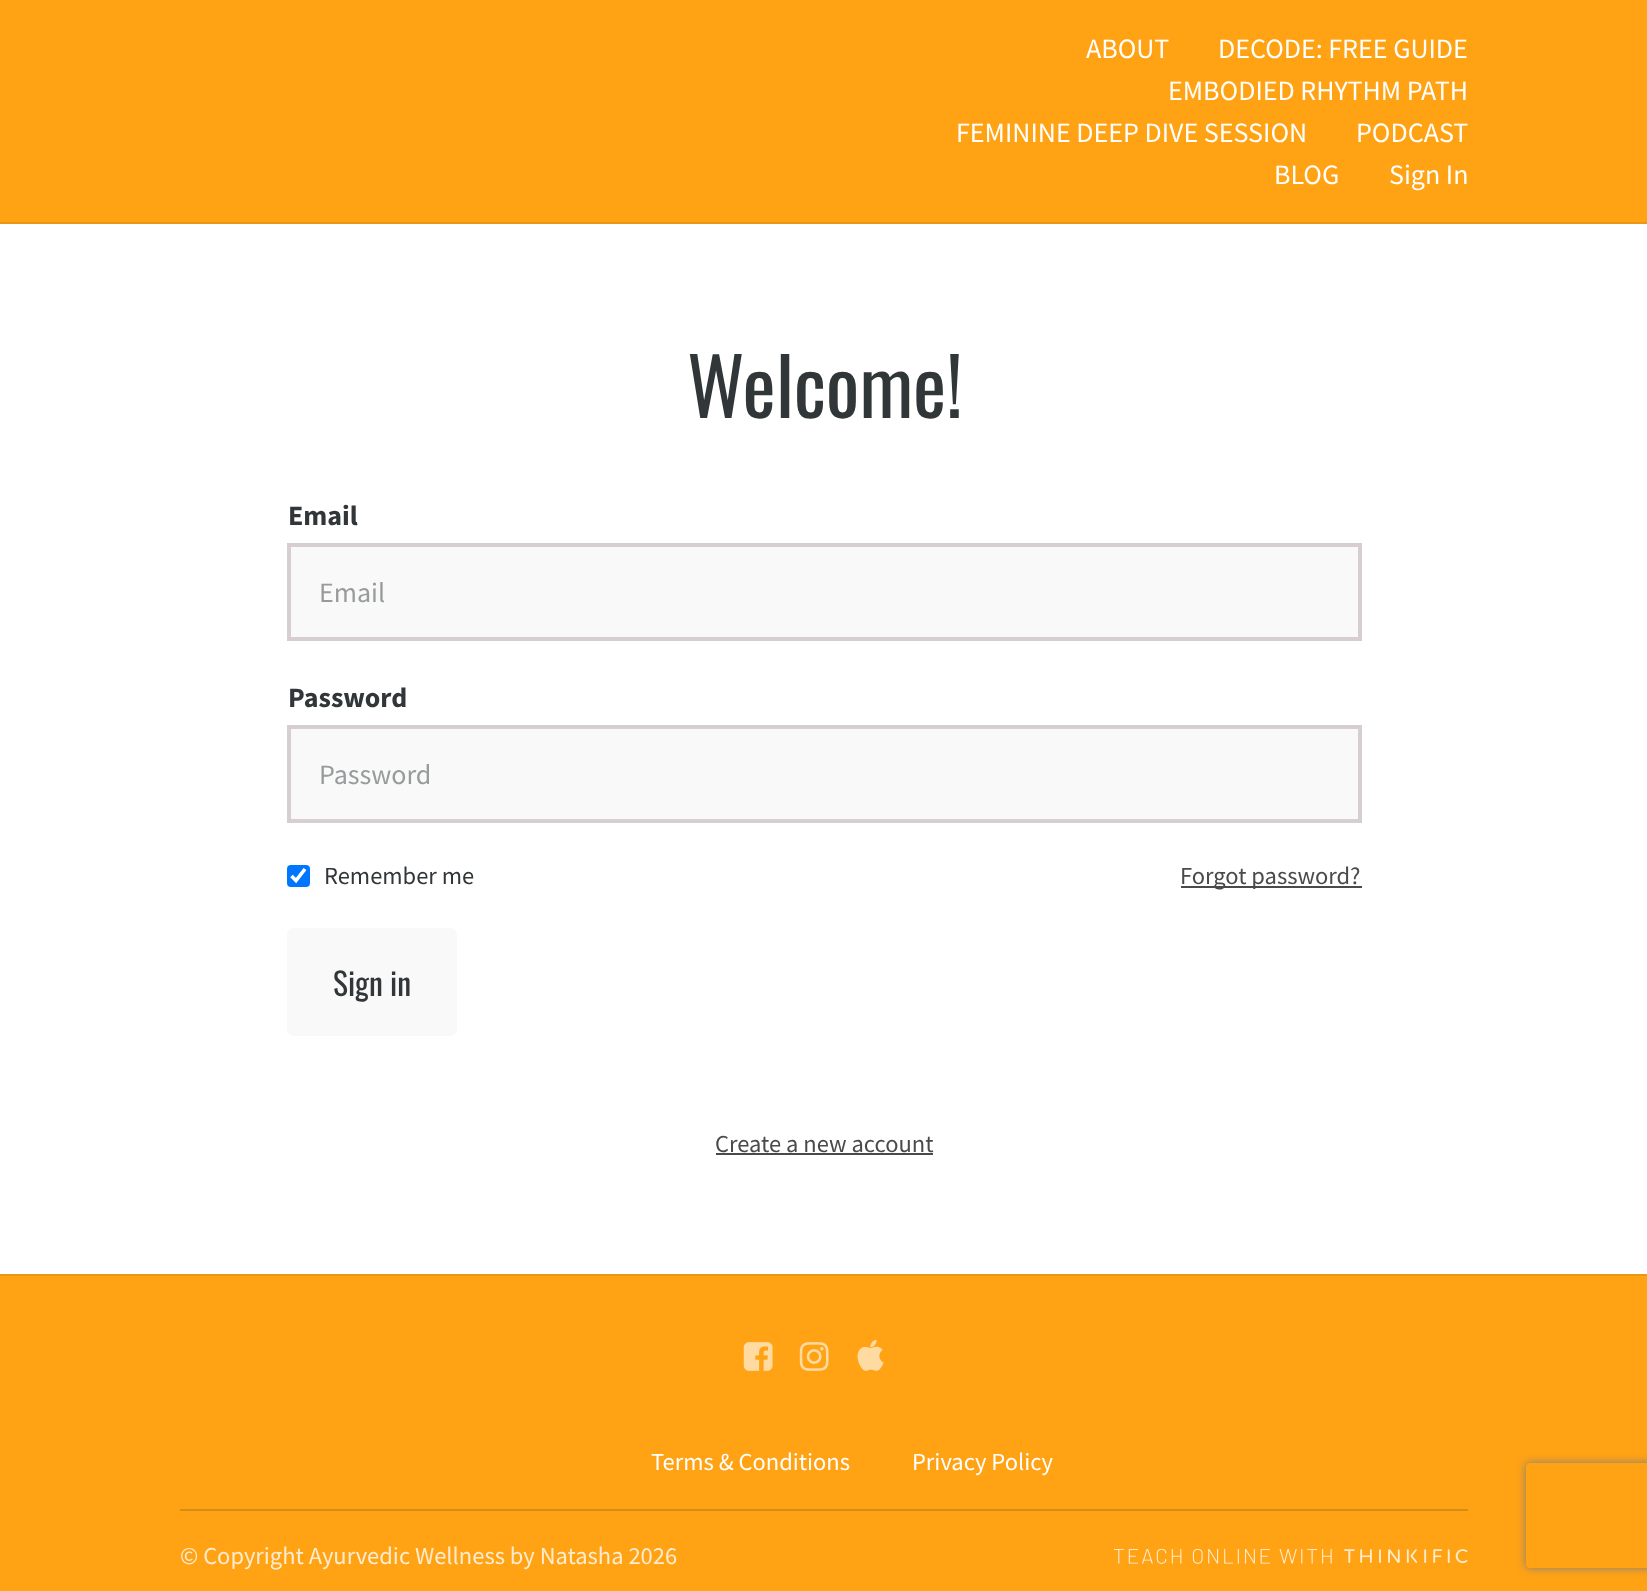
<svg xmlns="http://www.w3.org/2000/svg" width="1647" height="1591">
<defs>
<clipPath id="clip1"><path d="M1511 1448h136v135h-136zm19 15h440c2 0 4 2 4 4v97c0 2-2 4-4 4h-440c-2 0-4-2-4-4v-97c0-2 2-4 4-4z" clip-rule="evenodd"/></clipPath>
</defs>
<rect width="100%" height="100%" fill="#fff"/>
<rect width="1647" height="222" fill="#ffa214"/>
<rect y="222" width="1647" height="2" fill="#ea9718"/>
<text x="1086" y="58" style="font-family:Source Sans Pro;font-size:28px;fill:#fff">ABOUT</text>
<text x="1218" y="58" style="font-family:Source Sans Pro;font-size:28px;fill:#fff">DECODE: FREE GUIDE</text>
<text x="1168" y="100" style="font-family:Source Sans Pro;font-size:28px;fill:#fff">EMBODIED RHYTHM PATH</text>
<text x="956" y="142" style="font-family:Source Sans Pro;font-size:28px;fill:#fff">FEMININE DEEP DIVE SESSION</text>
<text x="1356" y="142" style="font-family:Source Sans Pro;font-size:28px;fill:#fff">PODCAST</text>
<text x="1274" y="184" style="font-family:Source Sans Pro;font-size:28px;fill:#fff">BLOG</text>
<text x="1389" y="184" style="font-family:Source Sans Pro;font-size:28px;fill:#fff">Sign In</text>
<text x="687" y="418" style="font-family:Oswald;font-size:79px;fill:#313638">Welcome!</text>
<text x="288" y="525" style="font-family:Source Sans Pro;font-size:28px;font-weight:bold;fill:#313638">Email</text>
<rect x="289" y="545" width="1071" height="94" fill="#faf9f9" stroke="#d7cfcf" stroke-width="4"/>
<text x="319" y="602" style="font-family:Source Sans Pro;font-size:28px;fill:#989b9c">Email</text>
<text x="288" y="707" style="font-family:Source Sans Pro;font-size:28px;font-weight:bold;fill:#313638">Password</text>
<rect x="289" y="727" width="1071" height="94" fill="#faf9f9" stroke="#d7cfcf" stroke-width="4"/>
<text x="319" y="784" style="font-family:Source Sans Pro;font-size:28px;fill:#989b9c">Password</text>
<rect x="287" y="865" width="23" height="22" rx="4" fill="#0075ff"/>
<path d="M291.5 876l4.5 4.5l9-11.5" fill="none" stroke="#fff" stroke-width="3.6"/>
<text x="324" y="884" style="font-family:Source Sans Pro;font-size:24.5px;fill:#313638">Remember me</text>
<rect x="1181" y="886" width="181" height="2" fill="#4a4a4a"/>
<text x="1180" y="884" style="font-family:Source Sans Pro;font-size:24.5px;fill:#4a4a4a">Forgot password?</text>
<rect x="287" y="928" width="170" height="108" rx="7" fill="#faf9f9"/>
<text x="333" y="996" style="font-family:Oswald;font-size:31.5px;fill:#313638">Sign in</text>
<rect y="1276" width="1647" height="315" fill="#ffa214"/>
<g clip-path="url(#clip1)">
<rect x="1526" y="1463" width="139" height="105" rx="4" fill="#808080" filter="blur(4.5px)"/>
</g>
<text x="715" y="1152" style="font-family:Source Sans Pro;font-size:24.5px;fill:#4a4a4a">Create a new account</text>
<rect x="716" y="1153" width="217" height="2" fill="#4a4a4a"/>
<rect y="1274" width="1647" height="2" fill="#ea9718"/>
<image x="743" y="1342" width="30" height="29" href="media/1.png"/>
<image x="799" y="1342" width="30" height="29" href="media/2.png"/>
<image x="857" y="1339" width="27" height="32" href="media/3.png"/>
<text x="651" y="1470" style="font-family:Source Sans Pro;font-size:24.5px;fill:#fff">Terms &amp; Conditions</text>
<text x="912" y="1470" style="font-family:Source Sans Pro;font-size:24.5px;fill:#fff">Privacy Policy</text>
<rect x="180" y="1509" width="1288" height="2" fill="#d68c1b"/>
<text x="180" y="1564" style="font-family:Source Sans Pro;font-size:24.5px;fill:#ffecd0">© Copyright Ayurvedic Wellness by Natasha 2026</text>
<image x="1114" y="1549" width="354" height="15" href="media/4.png"/>
</svg>
